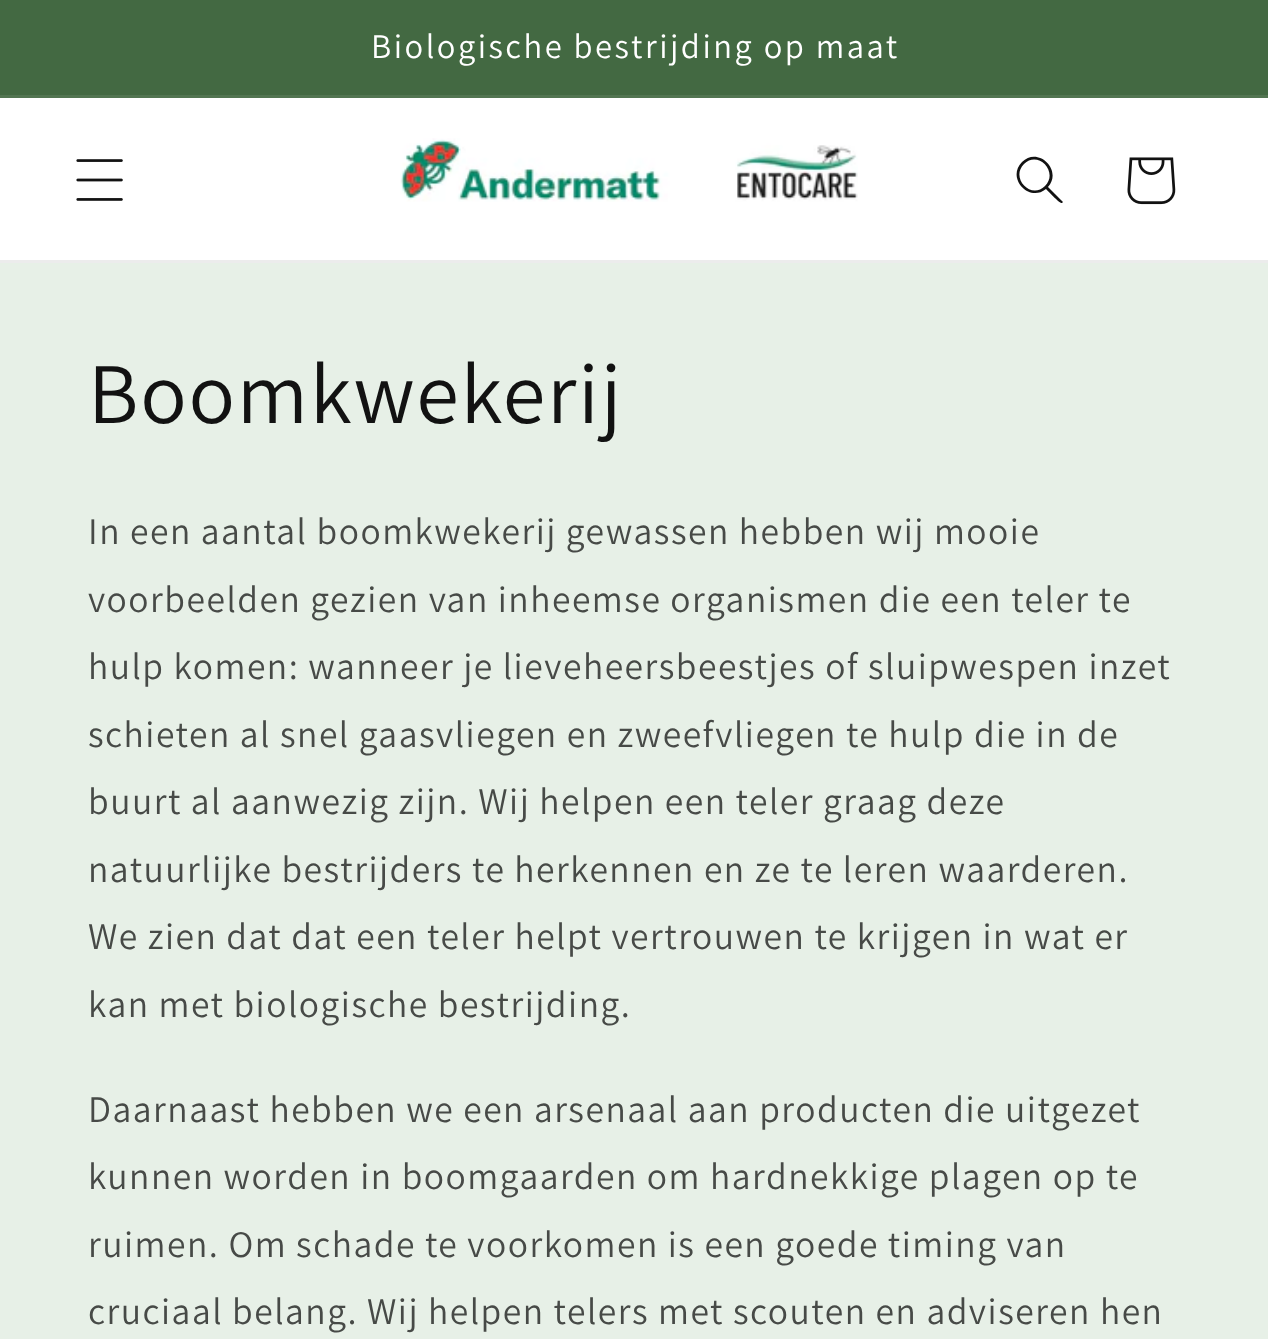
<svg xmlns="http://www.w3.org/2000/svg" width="1268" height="1339">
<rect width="100%" height="100%" fill="#fff"/>
<rect width="1268" height="95" fill="#436942"/>
<rect y="95" width="1268" height="3" fill="#527551"/>
<text x="371" y="58" style="font-family:Assistant;font-size:34.5px;letter-spacing:2.5px;fill:#fff">Biologische bestrijding op maat</text>
<rect y="260" width="1268" height="3" fill="#ececec"/>
<image x="76" y="159" width="47" height="42" href="media/1.png"/>
<image x="400" y="138" width="458" height="64" href="media/2.png"/>
<path d="M1045 186c-14 14-35-8-21-22c14-14 35 8 21 22zm1 3c-17 14-40-11-24-27c16-16 41 8 26 25l15 15l-1 1c-2 1-14-12-16-14z" fill="#121212" fill-rule="evenodd"/>
<image x="1127" y="157" width="49" height="48" href="media/3.png"/>
<rect y="263" width="1268" height="1076" fill="#e7f0e7"/>
<text x="88" y="423" style="font-family:Assistant;font-size:86.25px;letter-spacing:1.75px;fill:#121212">Boomkwekerij</text>
<text x="88" y="544" style="font-family:Assistant;font-size:37.5px;letter-spacing:1.5px;fill:#474a47">In een aantal boomkwekerij gewassen hebben wij mooie</text>
<text x="88" y="612" style="font-family:Assistant;font-size:37.5px;letter-spacing:1.5px;fill:#474a47">voorbeelden gezien van inheemse organismen die een teler te</text>
<text x="88" y="679" style="font-family:Assistant;font-size:37.5px;letter-spacing:1.5px;fill:#474a47">hulp komen: wanneer je lieveheersbeestjes of sluipwespen inzet</text>
<text x="88" y="747" style="font-family:Assistant;font-size:37.5px;letter-spacing:1.5px;fill:#474a47">schieten al snel gaasvliegen en zweefvliegen te hulp die in de</text>
<text x="88" y="814" style="font-family:Assistant;font-size:37.5px;letter-spacing:1.5px;fill:#474a47">buurt al aanwezig zijn. Wij helpen een teler graag deze</text>
<text x="88" y="882" style="font-family:Assistant;font-size:37.5px;letter-spacing:1.5px;fill:#474a47">natuurlijke bestrijders te herkennen en ze te leren waarderen.</text>
<text x="88" y="949" style="font-family:Assistant;font-size:37.5px;letter-spacing:1.5px;fill:#474a47">We zien dat dat een teler helpt vertrouwen te krijgen in wat er</text>
<text x="88" y="1017" style="font-family:Assistant;font-size:37.5px;letter-spacing:1.5px;fill:#474a47">kan met biologische bestrijding.</text>
<text x="88" y="1122" style="font-family:Assistant;font-size:37.5px;letter-spacing:1.5px;fill:#474a47">Daarnaast hebben we een arsenaal aan producten die uitgezet</text>
<text x="88" y="1189" style="font-family:Assistant;font-size:37.5px;letter-spacing:1.5px;fill:#474a47">kunnen worden in boomgaarden om hardnekkige plagen op te</text>
<text x="88" y="1257" style="font-family:Assistant;font-size:37.5px;letter-spacing:1.5px;fill:#474a47">ruimen. Om schade te voorkomen is een goede timing van</text>
<text x="88" y="1324" style="font-family:Assistant;font-size:37.5px;letter-spacing:1.5px;fill:#474a47">cruciaal belang. Wij helpen telers met scouten en adviseren hen</text>
</svg>
